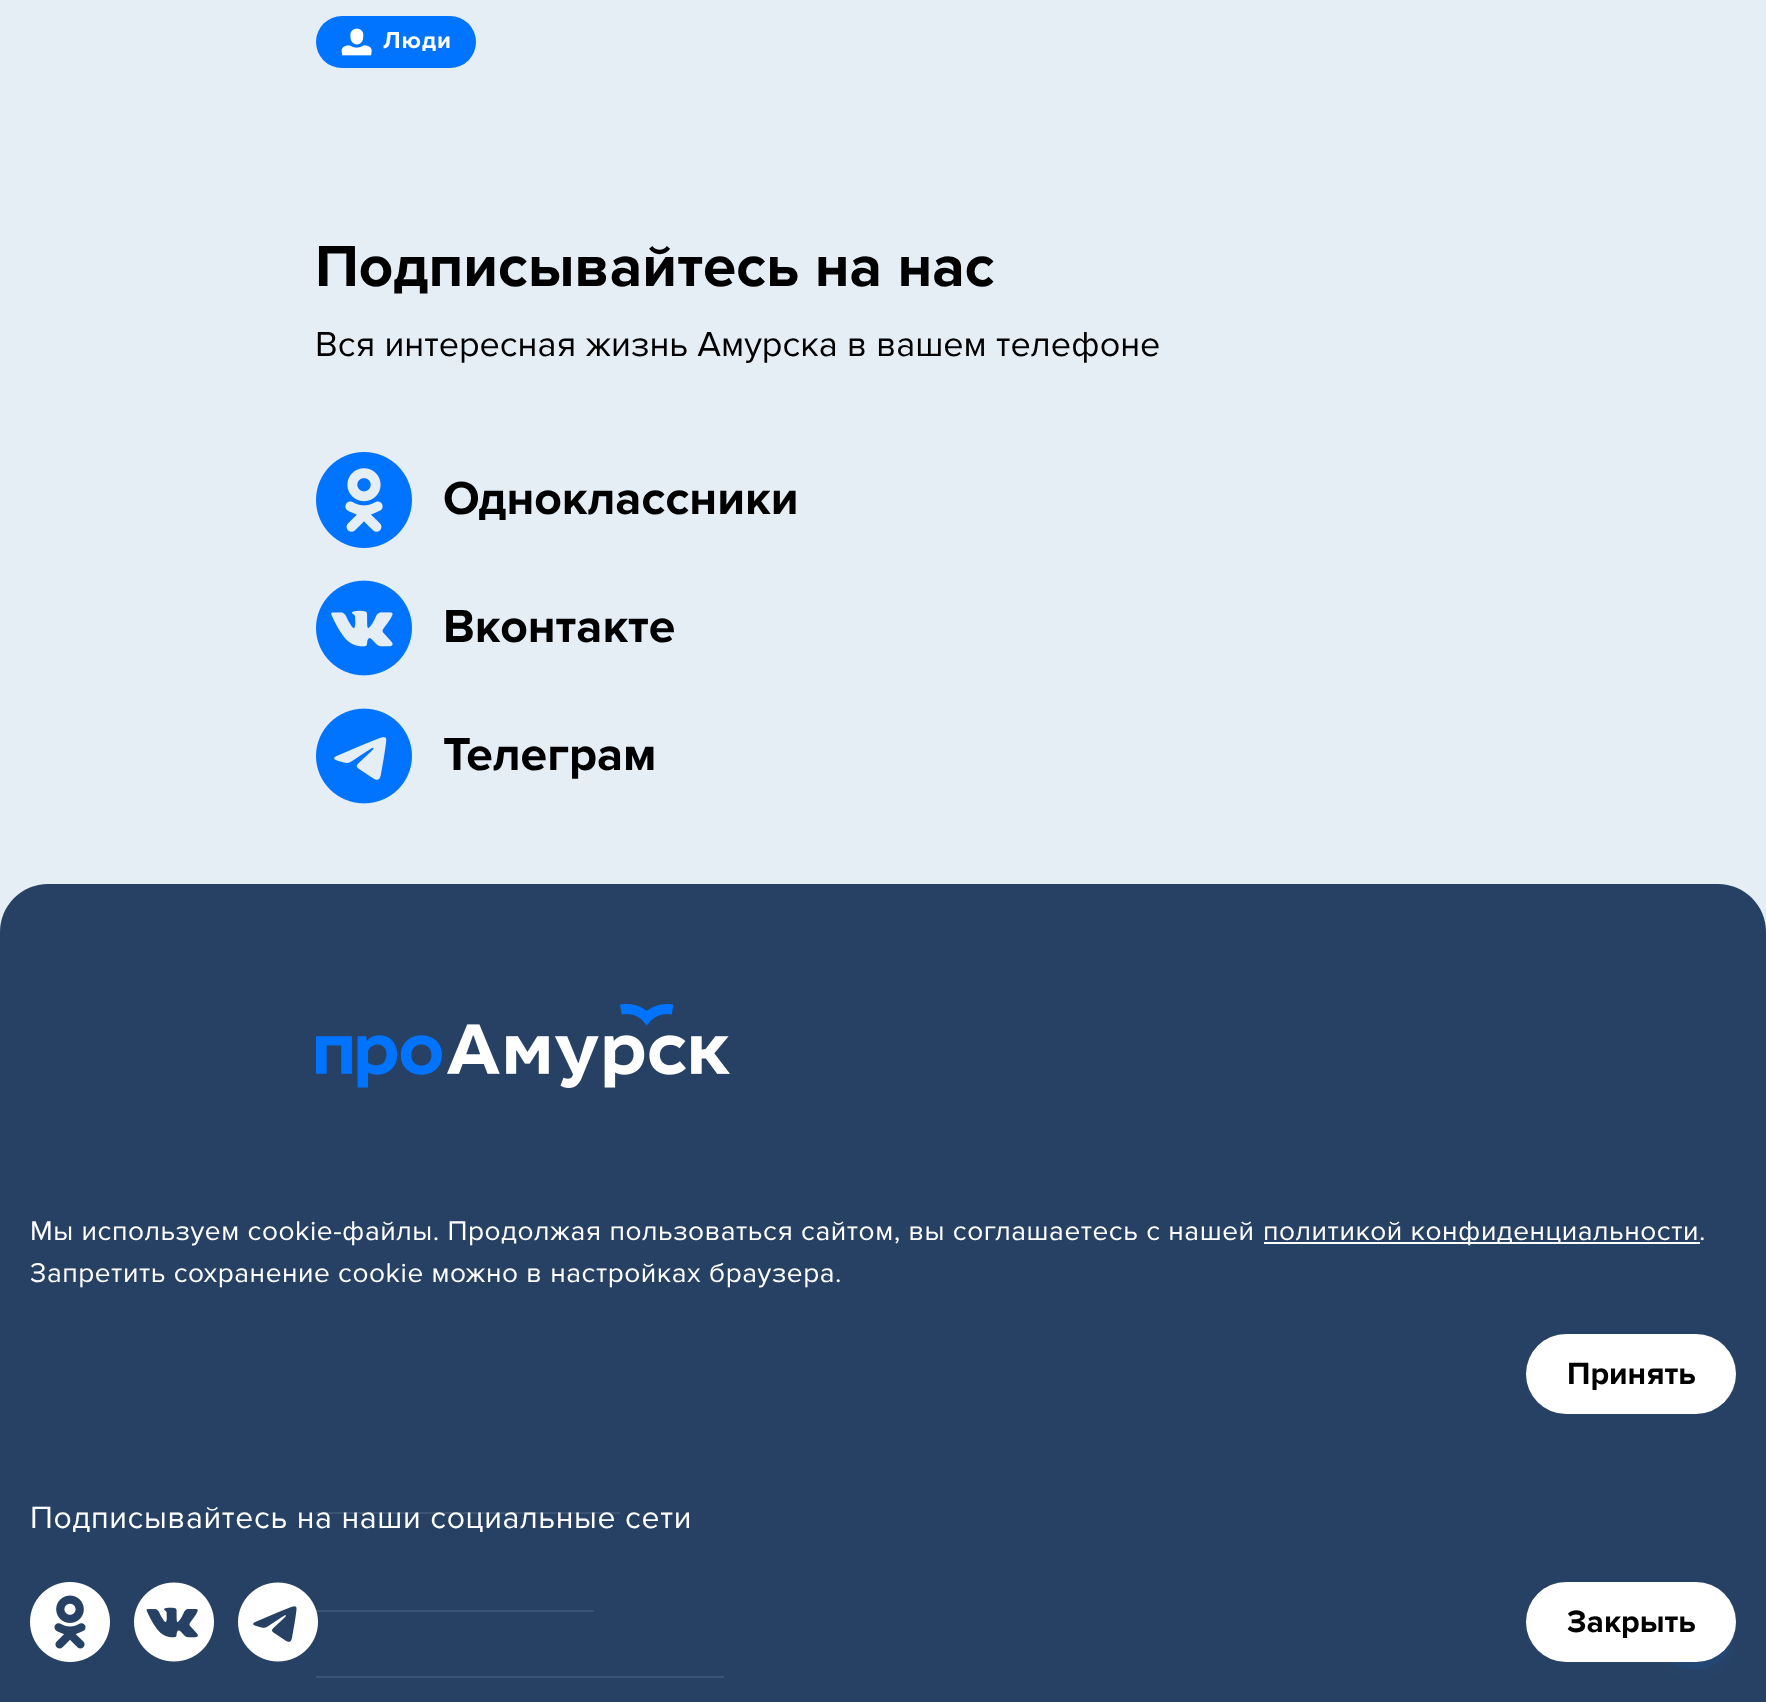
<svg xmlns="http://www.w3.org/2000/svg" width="1766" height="1702">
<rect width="100%" height="100%" fill="#e6eef5"/>
<rect x="316" y="16" width="160" height="52" rx="26" fill="#0073ff"/>
<image x="341" y="28" width="31" height="28" href="media/1.png"/>
<text x="383" y="48" style="font-family:Proxima Nova;font-size:24px;font-weight:bold;letter-spacing:1px;fill:#fff">Люди</text>
<text x="315" y="286" style="font-family:Proxima Nova;font-size:60px;font-weight:bold;fill:#000">Подписывайтесь на нас</text>
<text x="315" y="356" style="font-family:Proxima Nova;font-size:36px;fill:#000">Вся интересная жизнь Амурска в вашем телефоне</text>
<image x="316" y="452" width="96" height="96" href="media/2.png"/>
<text x="443" y="514" style="font-family:Proxima Nova;font-size:48px;font-weight:bold;fill:#000">Одноклассники</text>
<image x="316" y="580" width="96" height="96" href="media/3.png"/>
<text x="443" y="642" style="font-family:Proxima Nova;font-size:48px;font-weight:bold;fill:#000">Вконтакте</text>
<image x="316" y="708" width="96" height="96" href="media/4.png"/>
<text x="443" y="770" style="font-family:Proxima Nova;font-size:48px;font-weight:bold;fill:#000">Телеграм</text>
<path d="M48 884h1670c26.5 0 48 21.5 48 48v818h-1766v-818c0-26.5 21.5-48 48-48z" fill="#274164"/>
<image x="316" y="1004" width="414" height="84" href="media/5.png"/>
<rect x="316" y="1512" width="304" height="2" fill="#fff"/>
<rect x="316" y="1610" width="278" height="2" fill="#fff"/>
<rect x="316" y="1676" width="408" height="2" fill="#fff"/>
<text x="30" y="1240" style="font-family:Proxima Nova;font-size:28px;letter-spacing:0.55px;fill:#fff">Мы используем cookie-файлы. Продолжая пользоваться сайтом, вы соглашаетесь с нашей</text>
<rect x="1264" y="1242" width="436" height="2" fill="#fff"/>
<text x="1263" y="1240" style="font-family:Proxima Nova;font-size:28px;letter-spacing:0.55px;fill:#fff">политикой конфиденциальности.</text>
<text x="30" y="1282" style="font-family:Proxima Nova;font-size:28px;letter-spacing:0.55px;fill:#fff">Запретить сохранение cookie можно в настройках браузера.</text>
<rect x="1526" y="1334" width="210" height="80" rx="40" fill="#fff"/>
<text x="1567" y="1384" style="font-family:Proxima Nova;font-size:32px;font-weight:bold;fill:#000">Принять</text>
<rect x="1654" y="1598" width="80" height="80" rx="40" fill="#0073ff3d" filter="blur(8px)"/>
<path d="M1734 1630c0 22-18 40-40 40c-22 0-40-18-40-40c0-22 18-40 40-40c22 0 40 18 40 40z" fill="#0073ff"/>
<path d="M1732 1630c0 21-17 38-38 38c-21 0-38-17-38-38c0-21 17-38 38-38c21 0 38 17 38 38z" fill="none" stroke="#0073ff" stroke-width="4"/>
<rect x="316" y="1512" width="1429" height="177" fill="#274164e6"/>
<text x="30" y="1528" style="font-family:Proxima Nova;font-size:32px;letter-spacing:0.65px;fill:#fff">Подписывайтесь на наши социальные сети</text>
<image x="30" y="1582" width="80" height="80" href="media/6.png"/>
<image x="134" y="1582" width="80" height="80" href="media/7.png"/>
<image x="238" y="1582" width="80" height="80" href="media/8.png"/>
<rect x="1526" y="1582" width="210" height="80" rx="40" fill="#fff"/>
<text x="1567" y="1632" style="font-family:Proxima Nova;font-size:32px;font-weight:bold;fill:#000">Закрыть</text>
</svg>
